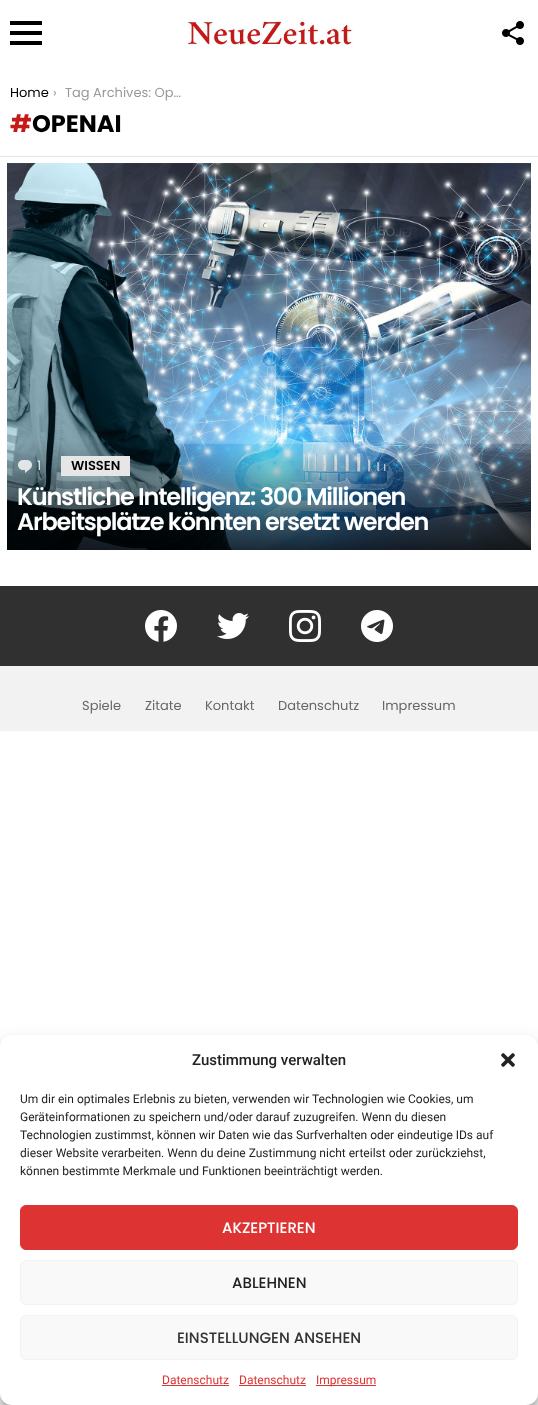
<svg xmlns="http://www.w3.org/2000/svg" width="538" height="1405">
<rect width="100%" height="100%" fill="#fff"/>
<rect y="156" width="538" height="1" fill="#e6e6e6"/>
<image x="10" y="21" width="32" height="24" href="media/1.png"/>
<image x="187" y="19" width="167" height="26" href="media/2.png"/>
<image x="502" y="21" width="22" height="24" href="media/3.png"/>
<text x="10" y="97" style="font-family:Poppins;font-size:13px;fill:#000">Home</text>
<text x="53" y="97" style="font-family:Poppins;font-size:13px;fill:#999">›</text>
<text x="65" y="97" style="font-family:Poppins;font-size:13px;fill:#999">Tag Archives: Op…</text>
<text x="10" y="132" style="font-family:Poppins;font-size:24px;font-weight:bold;fill:#c61918">#</text>
<text x="32" y="132" style="font-family:Poppins;font-size:24px;font-weight:bold;fill:#000">OPENAI</text>
<image x="7" y="163" width="524" height="387" href="media/4.png"/>
<image x="18" y="460" width="14" height="13" href="media/5.png"/>
<text x="37" y="470" style="font-family:Poppins;font-size:13px;fill:#dde2e4">1</text>
<rect x="61" y="456" width="69" height="20" fill="#e6e6e6"/>
<text x="71" y="470" style="font-family:Poppins;font-size:13px;font-weight:600;fill:#000">WISSEN</text>
<text x="17" y="505" style="font-family:Poppins;font-size:24px;font-weight:600;letter-spacing:-1.2px;fill:#fff">Künstliche Intelligenz: 300 Millionen</text>
<text x="17" y="530" style="font-family:Poppins;font-size:24px;font-weight:600;letter-spacing:-1.2px;fill:#fff">Arbeitsplätze könnten ersetzt werden</text>
<rect y="586" width="538" height="80" fill="#303030"/>
<image x="145" y="610" width="32" height="32" href="media/6.png"/>
<image x="217" y="613" width="32" height="26" href="media/7.png"/>
<image x="289" y="610" width="32" height="32" href="media/8.png"/>
<image x="361" y="610" width="32" height="32" href="media/9.png"/>
<rect y="666" width="538" height="65" fill="#f2f2f2"/>
<text x="82" y="710" style="font-family:Poppins;font-size:13px;fill:#666">Spiele</text>
<text x="145" y="710" style="font-family:Poppins;font-size:13px;fill:#666">Zitate</text>
<text x="205" y="710" style="font-family:Poppins;font-size:13px;fill:#666">Kontakt</text>
<text x="278" y="710" style="font-family:Poppins;font-size:13px;fill:#666">Datenschutz</text>
<text x="382" y="710" style="font-family:Poppins;font-size:13px;fill:#666">Impressum</text>
<rect y="1041" width="538" height="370" rx="12" fill="#0000003b" filter="blur(3px)"/>
<rect y="1045" width="538" height="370" rx="12" fill="#00000030" filter="blur(10px)"/>
<rect y="1035" width="538" height="370" rx="12" fill="#fff"/>
<text x="192" y="1065" style="font-family:Roboto;font-size:15px;font-weight:500;fill:#222">Zustimmung verwalten</text>
<image x="501" y="1053" width="14" height="14" href="media/10.png"/>
<text x="20" y="1103" style="font-family:Roboto;font-size:12px;fill:#222">Um dir ein optimales Erlebnis zu bieten, verwenden wir Technologien wie Cookies, um</text>
<text x="20" y="1121" style="font-family:Roboto;font-size:12px;fill:#222">Geräteinformationen zu speichern und/oder darauf zuzugreifen. Wenn du diesen</text>
<text x="20" y="1139" style="font-family:Roboto;font-size:12px;fill:#222">Technologien zustimmst, können wir Daten wie das Surfverhalten oder eindeutige IDs auf</text>
<text x="20" y="1157" style="font-family:Roboto;font-size:12px;fill:#222">dieser Website verarbeiten. Wenn du deine Zustimmung nicht erteilst oder zurückziehst,</text>
<text x="20" y="1175" style="font-family:Roboto;font-size:12px;fill:#222">können bestimmte Merkmale und Funktionen beeinträchtigt werden.</text>
<rect x="20.5" y="1205.5" width="497" height="44" rx="5.5" fill="#d33" stroke="#d33"/>
<text x="222" y="1233" style="font-family:Poppins;font-size:15px;font-weight:500;fill:#fff">AKZEPTIEREN</text>
<rect x="20.5" y="1260.5" width="497" height="44" rx="5.5" fill="#f9f9f9" stroke="#f2f2f2"/>
<text x="232" y="1288" style="font-family:Poppins;font-size:15px;font-weight:500;fill:#222">ABLEHNEN</text>
<rect x="20.5" y="1315.5" width="497" height="44" rx="5.5" fill="#f9f9f9" stroke="#f2f2f2"/>
<text x="177" y="1343" style="font-family:Poppins;font-size:15px;font-weight:500;fill:#333">EINSTELLUNGEN ANSEHEN</text>
<text x="162" y="1384" style="font-family:Roboto;font-size:12px;fill:#d33">Datenschutz</text>
<rect x="162" y="1385" width="67" height="1" fill="#d33"/>
<text x="239" y="1384" style="font-family:Roboto;font-size:12px;fill:#d33">Datenschutz</text>
<rect x="239" y="1385" width="67" height="1" fill="#d33"/>
<rect x="316" y="1385" width="60" height="1" fill="#d33"/>
<text x="316" y="1384" style="font-family:Roboto;font-size:12px;fill:#d33">Impressum</text>
</svg>
